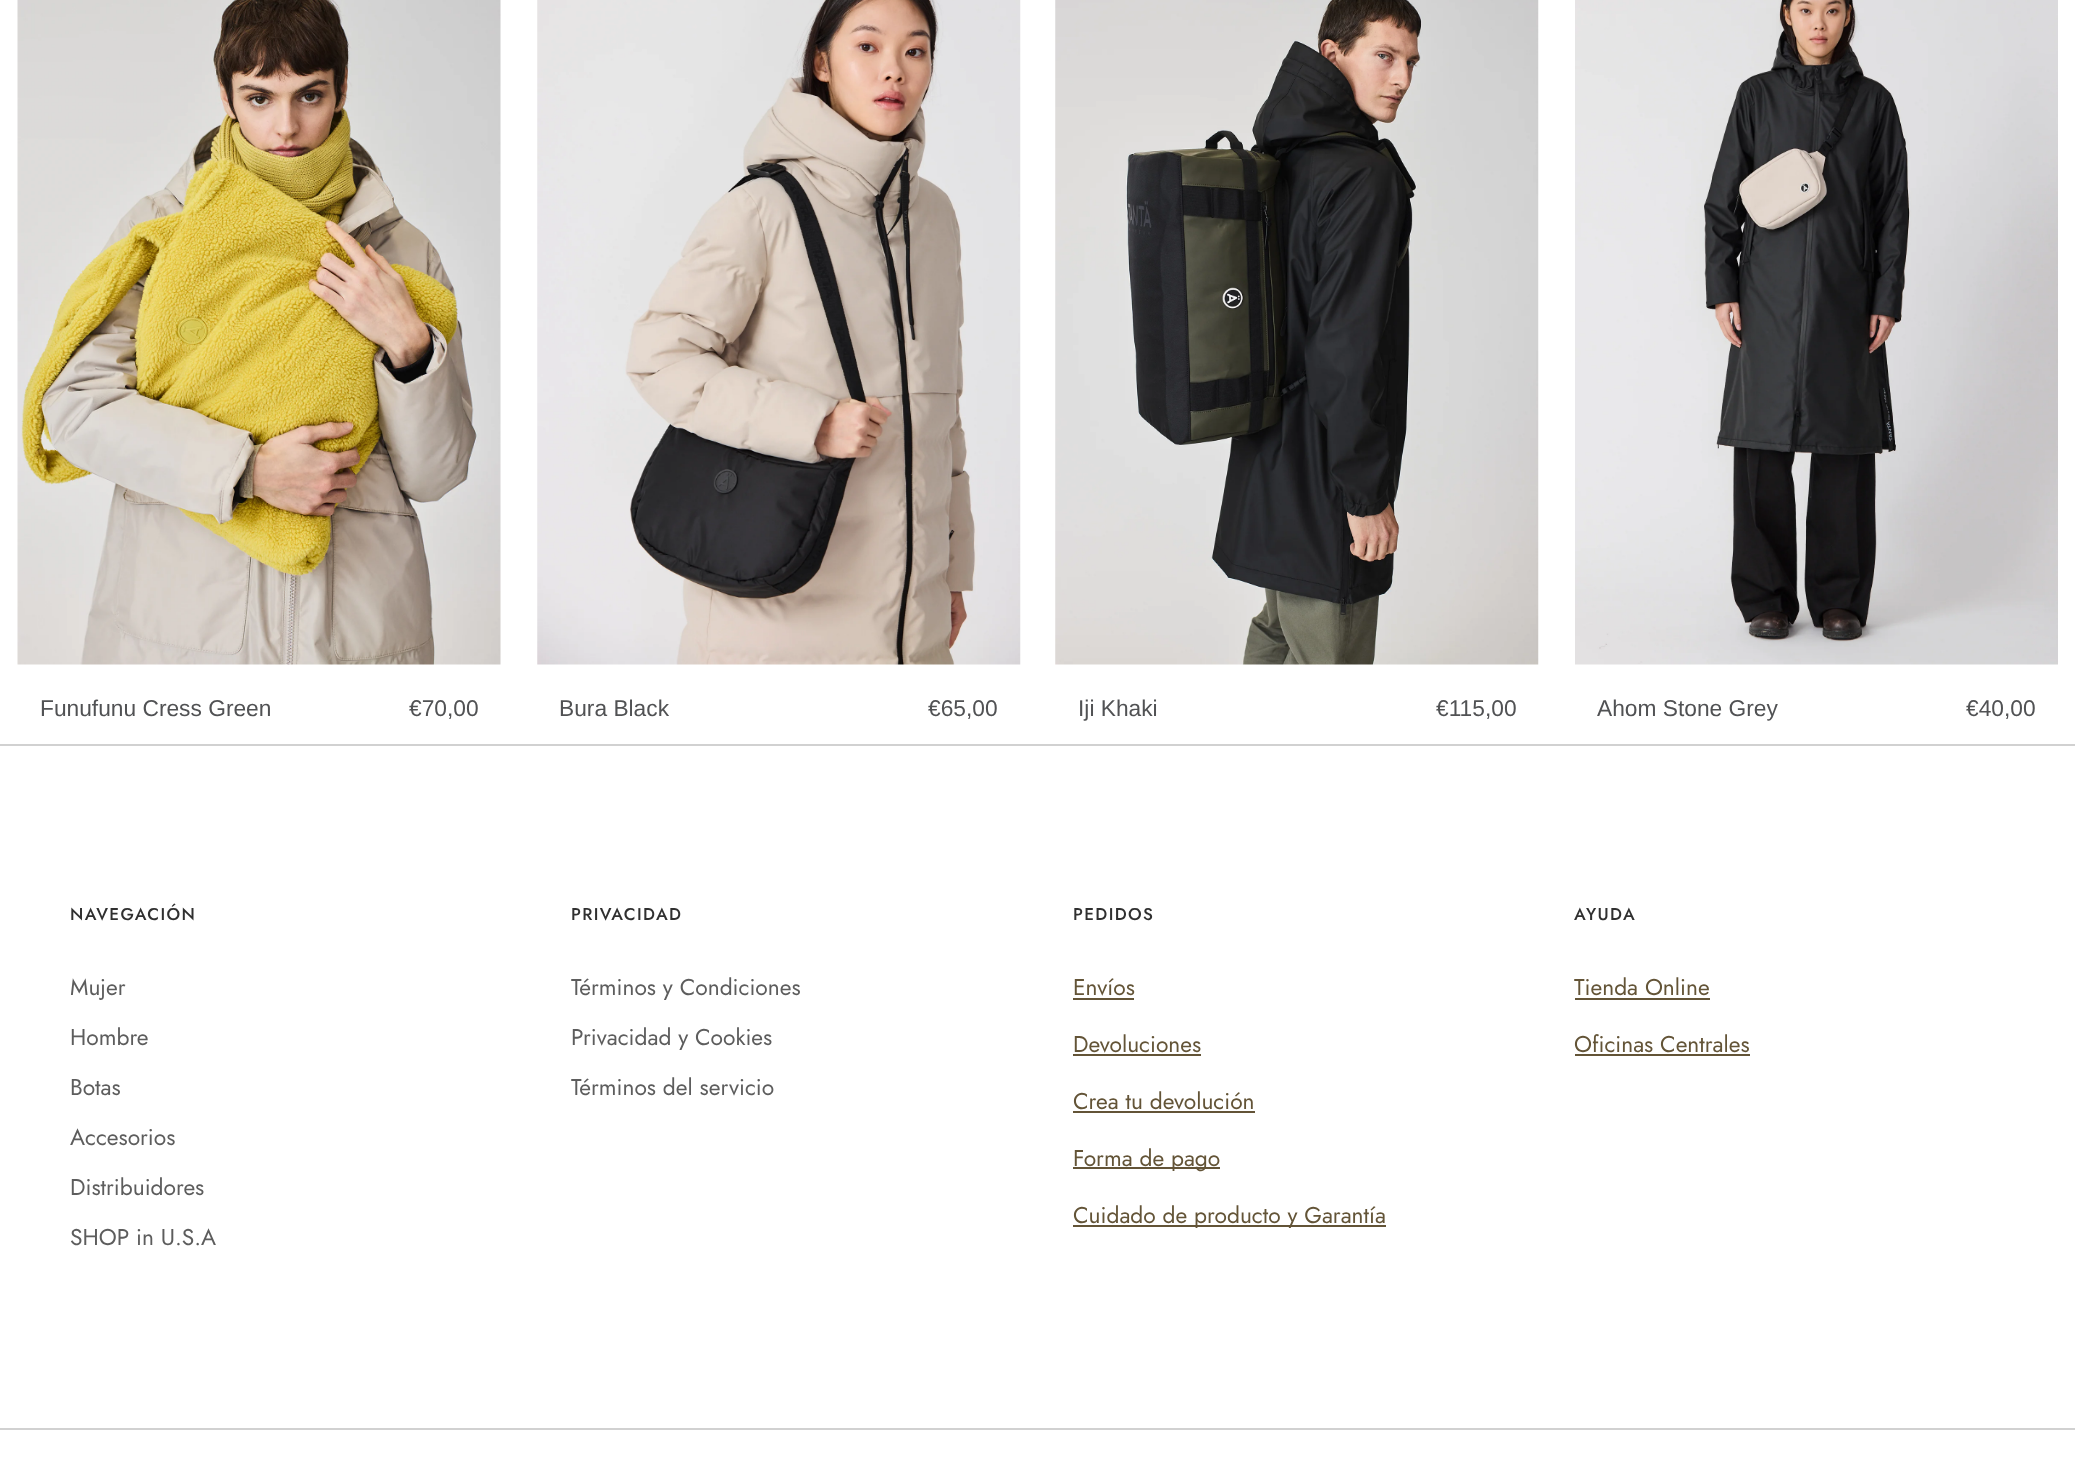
<svg xmlns="http://www.w3.org/2000/svg" width="2075" height="1462">
<rect width="100%" height="100%" fill="#fff"/>
<image x="17" y="0" width="484" height="665" href="media/1.png"/>
<text x="40" y="716" style="font-family:Liberation Sans;font-size:22.75px;fill:#515254">Funufunu Cress Green</text>
<text x="409" y="716" style="font-family:Liberation Sans;font-size:22.75px;fill:#515254">€70,00</text>
<image x="537" y="0" width="484" height="665" href="media/2.png"/>
<text x="559" y="716" style="font-family:Liberation Sans;font-size:22.75px;fill:#515254">Bura Black</text>
<text x="928" y="716" style="font-family:Liberation Sans;font-size:22.75px;fill:#515254">€65,00</text>
<image x="1055" y="0" width="484" height="665" href="media/3.png"/>
<text x="1078" y="716" style="font-family:Liberation Sans;font-size:22.75px;fill:#515254">Iji Khaki</text>
<text x="1436" y="716" style="font-family:Liberation Sans;font-size:22.75px;fill:#515254">€115,00</text>
<image x="1575" y="0" width="483" height="665" href="media/4.png"/>
<text x="1597" y="716" style="font-family:Liberation Sans;font-size:22.75px;fill:#515254">Ahom Stone Grey</text>
<text x="1966" y="716" style="font-family:Liberation Sans;font-size:22.75px;fill:#515254">€40,00</text>
<rect y="744" width="2075" height="2" fill="#d1d1d1"/>
<text x="70" y="920" style="font-family:Jost;font-size:17px;font-weight:500;letter-spacing:1.4px;fill:#303030">NAVEGACIÓN</text>
<text x="70" y="995" style="font-family:Jost;font-size:22.75px;fill:#5d5d5d">Mujer</text>
<text x="70" y="1045" style="font-family:Jost;font-size:22.75px;fill:#5d5d5d">Hombre</text>
<text x="70" y="1095" style="font-family:Jost;font-size:22.75px;fill:#5d5d5d">Botas</text>
<text x="70" y="1145" style="font-family:Jost;font-size:22.75px;fill:#5d5d5d">Accesorios</text>
<text x="70" y="1195" style="font-family:Jost;font-size:22.75px;fill:#5d5d5d">Distribuidores</text>
<text x="70" y="1245" style="font-family:Jost;font-size:22.75px;fill:#5d5d5d">SHOP in U.S.A</text>
<text x="571" y="920" style="font-family:Jost;font-size:17px;font-weight:500;letter-spacing:1.4px;fill:#303030">PRIVACIDAD</text>
<text x="571" y="995" style="font-family:Jost;font-size:22.75px;fill:#5d5d5d">Términos y Condiciones</text>
<text x="571" y="1045" style="font-family:Jost;font-size:22.75px;fill:#5d5d5d">Privacidad y Cookies</text>
<text x="571" y="1095" style="font-family:Jost;font-size:22.75px;fill:#5d5d5d">Términos del servicio</text>
<text x="1073" y="920" style="font-family:Jost;font-size:17px;font-weight:500;letter-spacing:1.4px;fill:#303030">PEDIDOS</text>
<text x="1073" y="995" style="font-family:Jost;font-size:22.75px;fill:#635437">Envíos</text>
<rect x="1073" y="998" width="61" height="2" fill="#635437"/>
<text x="1073" y="1052" style="font-family:Jost;font-size:22.75px;fill:#635437">Devoluciones</text>
<rect x="1073" y="1054" width="128" height="2" fill="#635437"/>
<text x="1073" y="1109" style="font-family:Jost;font-size:22.75px;fill:#635437">Crea tu devolución</text>
<rect x="1073" y="1111" width="182" height="2" fill="#635437"/>
<rect x="1073" y="1167" width="147" height="2" fill="#635437"/>
<text x="1073" y="1166" style="font-family:Jost;font-size:22.75px;fill:#635437">Forma de pago</text>
<rect x="1073" y="1225" width="313" height="2" fill="#635437"/>
<text x="1073" y="1223" style="font-family:Jost;font-size:22.75px;fill:#635437">Cuidado de producto y Garantía</text>
<text x="1574" y="920" style="font-family:Jost;font-size:17px;font-weight:500;letter-spacing:1.4px;fill:#303030">AYUDA</text>
<text x="1574" y="995" style="font-family:Jost;font-size:22.75px;fill:#635437">Tienda Online</text>
<rect x="1575" y="998" width="135" height="2" fill="#635437"/>
<text x="1574" y="1052" style="font-family:Jost;font-size:22.75px;fill:#635437">Oficinas Centrales</text>
<rect x="1575" y="1054" width="175" height="2" fill="#635437"/>
<rect y="1428" width="2075" height="2" fill="#d1d1d1"/>
</svg>
